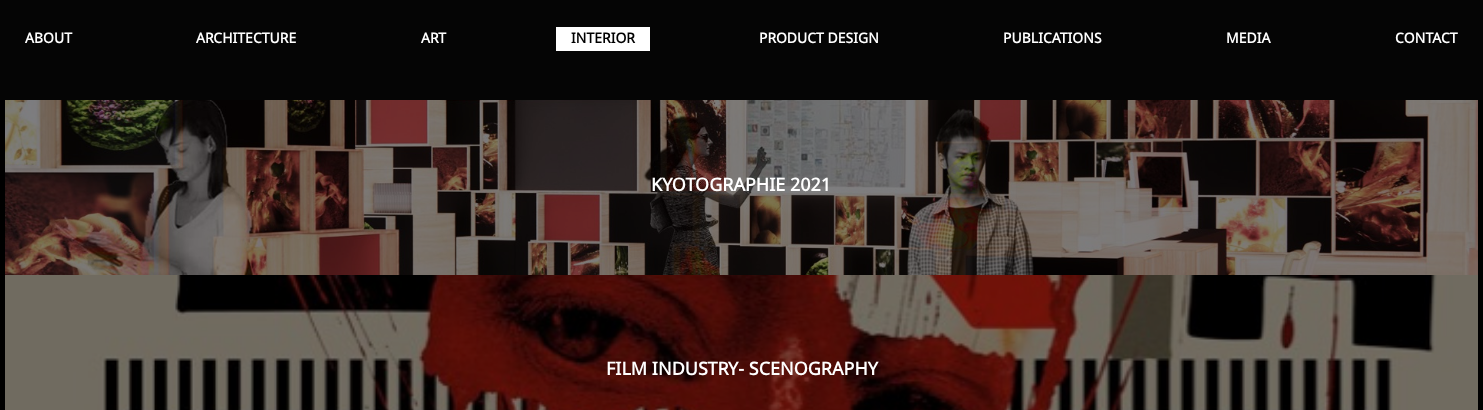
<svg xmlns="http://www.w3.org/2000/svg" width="1483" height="410">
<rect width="100%" height="100%" fill="#050505"/>
<text x="25" y="43" style="font-family:Nokora;font-size:14px;font-weight:bold;fill:#fff">ABOUT</text>
<text x="196" y="43" style="font-family:Nokora;font-size:14px;font-weight:bold;fill:#fff">ARCHITECTURE</text>
<text x="421" y="43" style="font-family:Nokora;font-size:14px;font-weight:bold;fill:#fff">ART</text>
<rect x="556" y="27" width="94" height="24" fill="#fff"/>
<text x="571" y="43" style="font-family:Nokora;font-size:14px;font-weight:bold;fill:#000">INTERIOR</text>
<text x="759" y="43" style="font-family:Nokora;font-size:14px;font-weight:bold;fill:#fff">PRODUCT DESIGN</text>
<text x="1003" y="43" style="font-family:Nokora;font-size:14px;font-weight:bold;fill:#fff">PUBLICATIONS</text>
<text x="1226" y="43" style="font-family:Nokora;font-size:14px;font-weight:bold;fill:#fff">MEDIA</text>
<text x="1395" y="43" style="font-family:Nokora;font-size:14px;font-weight:bold;fill:#fff">CONTACT</text>
<rect y="100" width="1483" height="310" fill="#000"/>
<image x="5" y="100" width="1473" height="175" href="media/1.png"/>
<text x="651" y="191" style="font-family:Nokora;font-size:18px;font-weight:bold;fill:#fff">KYOTOGRAPHIE 2021</text>
<image x="5" y="275" width="1473" height="135" href="media/2.png"/>
<text x="606" y="375" style="font-family:Nokora;font-size:18px;font-weight:bold;fill:#fff">FILM INDUSTRY- SCENOGRAPHY</text>
</svg>
